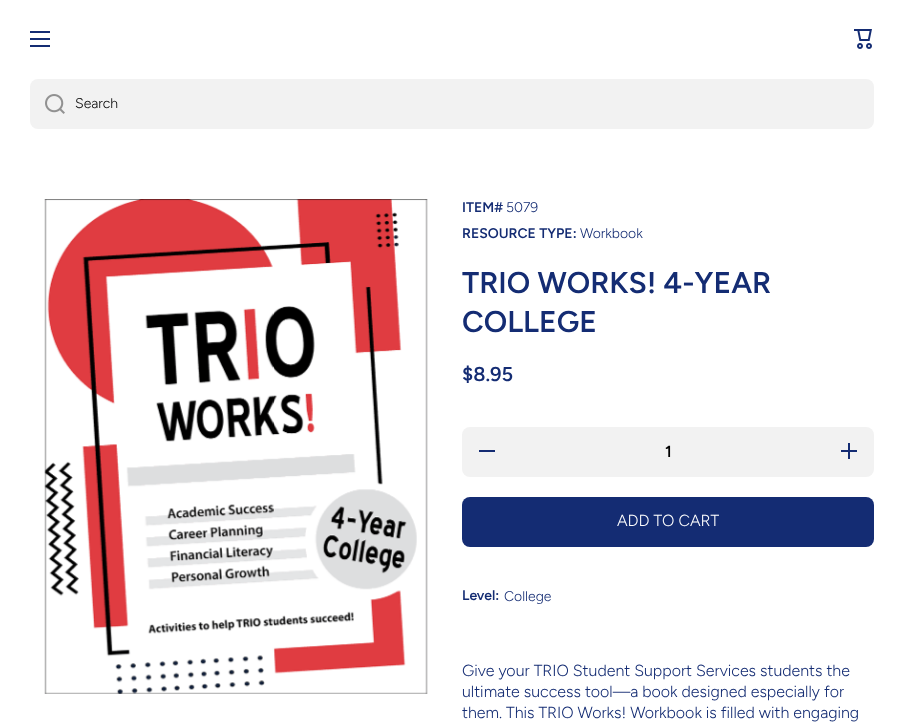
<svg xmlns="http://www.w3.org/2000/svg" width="904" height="725">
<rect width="100%" height="100%" fill="#fff"/>
<rect x="30" y="31" width="20" height="2" fill="#142c73"/>
<rect x="30" y="38" width="20" height="2" fill="#142c73"/>
<rect x="30" y="45" width="20" height="2" fill="#142c73"/>
<image x="854" y="29" width="18" height="20" href="media/1.png"/>
<rect x="30" y="79" width="844" height="50" rx="8" fill="#f2f2f2"/>
<image x="45" y="94" width="20" height="20" href="media/2.png"/>
<text x="75" y="108" style="font-family:Figtree;font-size:14px;font-weight:300;fill:#000">Search</text>
<image x="44" y="199" width="384" height="495" href="media/3.png"/>
<text x="462" y="212" style="font-family:Figtree;font-size:14px;font-weight:600;fill:#142c73">ITEM#</text>
<text x="506" y="212" style="font-family:Figtree;font-size:14px;font-weight:300;fill:#142c73">5079</text>
<text x="462" y="238" style="font-family:Figtree;font-size:14px;font-weight:600;fill:#142c73">RESOURCE TYPE:</text>
<text x="580" y="238" style="font-family:Figtree;font-size:14px;font-weight:300;fill:#142c73">Workbook</text>
<text x="462" y="293" style="font-family:Figtree;font-size:30px;font-weight:600;fill:#142c73">TRIO WORKS! 4-YEAR</text>
<text x="462" y="332" style="font-family:Figtree;font-size:30px;font-weight:600;fill:#142c73">COLLEGE</text>
<text x="462" y="381" style="font-family:Figtree;font-size:20px;font-weight:600;fill:#142c73">$8.95</text>
<rect x="462" y="427" width="412" height="50" rx="8" fill="#f2f2f2"/>
<rect x="479" y="450" width="16" height="2" fill="#142c73"/>
<text x="665" y="457" style="font-family:Figtree;font-size:16px;font-weight:600;fill:#000">1</text>
<image x="841" y="443" width="16" height="16" href="media/4.png"/>
<rect x="462" y="497" width="412" height="50" rx="8" fill="#142c73"/>
<text x="617" y="526" style="font-family:Figtree;font-size:16px;font-weight:300;fill:#fff">ADD TO CART</text>
<text x="462" y="600" style="font-family:Figtree;font-size:14px;font-weight:600;fill:#142c73">Level:</text>
<text x="504" y="601" style="font-family:Figtree;font-size:14px;font-weight:300;fill:#142c73">College</text>
<text x="462" y="676" style="font-family:Figtree;font-size:16px;font-weight:300;fill:#142c73">Give your TRIO Student Support Services students the</text>
<text x="462" y="697" style="font-family:Figtree;font-size:16px;font-weight:300;fill:#142c73">ultimate success tool—a book designed especially for</text>
<text x="462" y="718" style="font-family:Figtree;font-size:16px;font-weight:300;fill:#142c73">them. This TRIO Works! Workbook is filled with engaging</text>
</svg>
